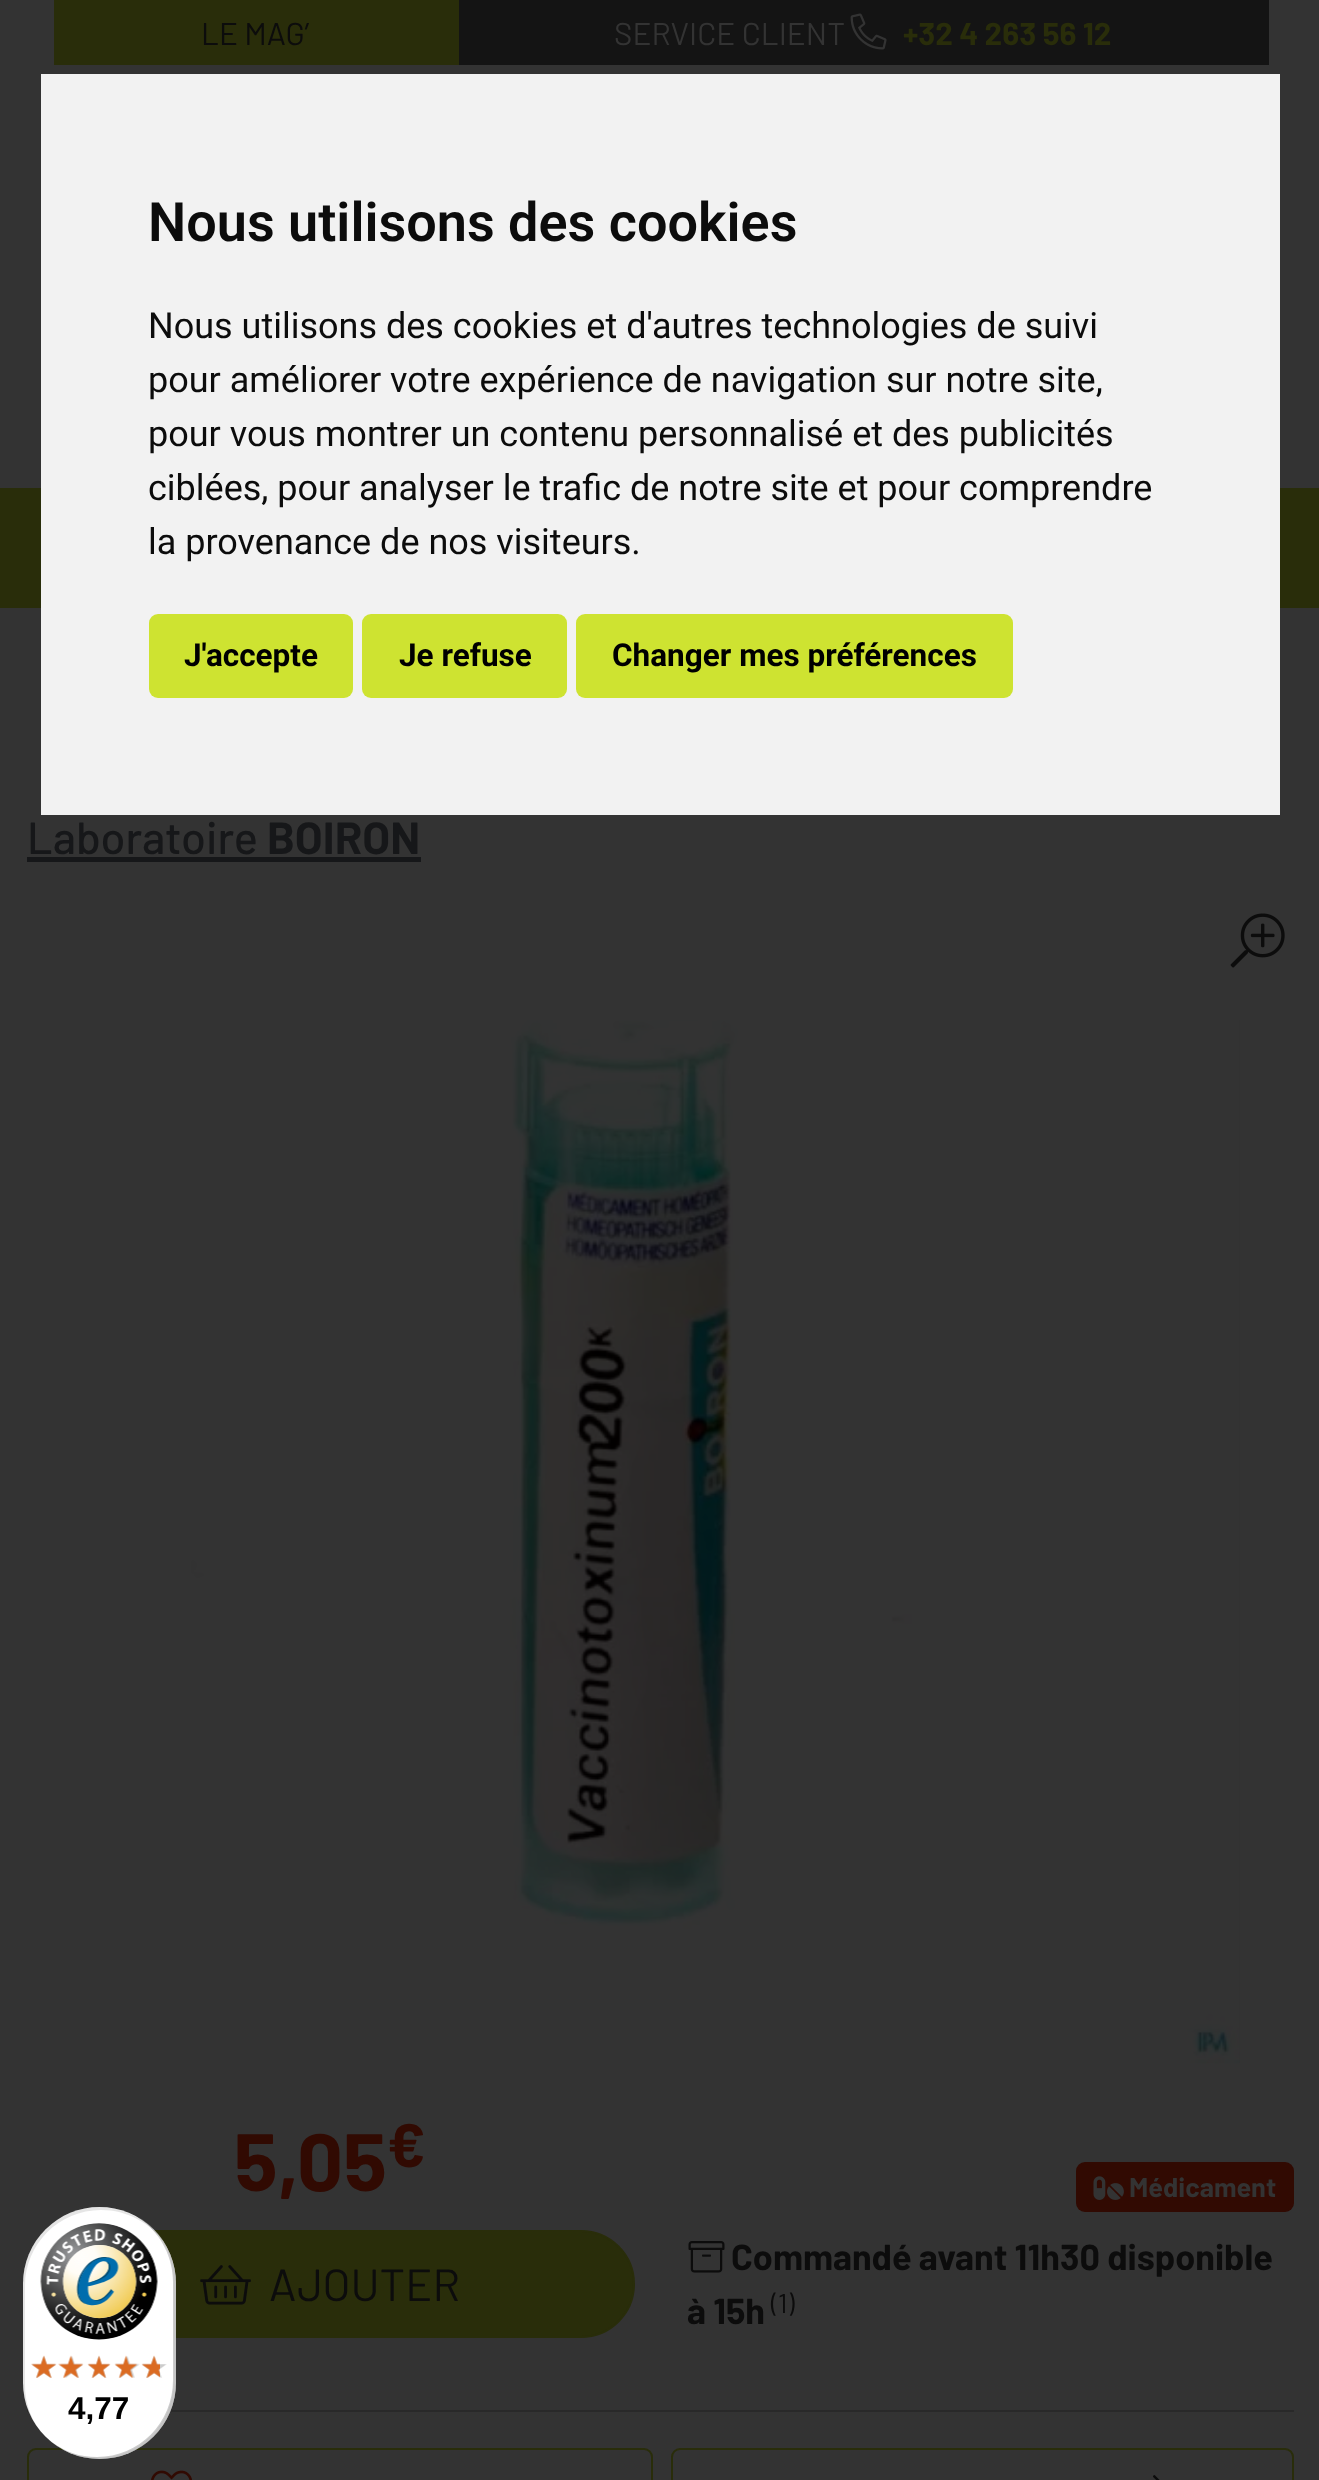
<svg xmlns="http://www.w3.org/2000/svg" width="1319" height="2480">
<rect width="100%" height="100%" fill="#333"/>
<rect x="54" width="405" height="65" fill="#292d0a"/>
<text x="201" y="45" style="font-family:Barlow;font-size:31.5px;fill:#0c0c0c">LE MAG’</text>
<rect x="459" width="810" height="65" fill="#141414"/>
<text x="614" y="45" style="font-family:Barlow;font-size:31.5px;fill:#333">SERVICE CLIENT</text>
<image x="850" y="13" width="37" height="37" href="media/1.png"/>
<text x="903" y="45" style="font-family:Barlow;font-size:31.5px;font-weight:bold;fill:#292d0a">+32 4 263 56 12</text>
<rect y="488" width="1319" height="120" fill="#292d0a"/>
<rect x="41" y="74" width="1239" height="741" fill="#f2f2f2"/>
<text x="148" y="241" style="font-family:Roboto;font-size:54px;font-weight:600;fill:#0c0c0c">Nous utilisons des cookies</text>
<text x="148" y="338" style="font-family:Roboto;font-size:36px;fill:#0c0c0c">Nous utilisons des cookies et d'autres technologies de suivi</text>
<text x="148" y="392" style="font-family:Roboto;font-size:36px;fill:#0c0c0c">pour améliorer votre expérience de navigation sur notre site,</text>
<text x="148" y="446" style="font-family:Roboto;font-size:36px;fill:#0c0c0c">pour vous montrer un contenu personnalisé et des publicités</text>
<text x="148" y="500" style="font-family:Roboto;font-size:36px;fill:#0c0c0c">ciblées, pour analyser le trafic de notre site et pour comprendre</text>
<text x="148" y="554" style="font-family:Roboto;font-size:36px;fill:#0c0c0c">la provenance de nos visiteurs.</text>
<rect x="149" y="614" width="204" height="84" rx="9" fill="#cee331"/>
<text x="184" y="666" style="font-family:Roboto;font-size:31.5px;font-weight:bold;fill:#000">J'accepte</text>
<rect x="362" y="614" width="205" height="84" rx="9" fill="#cee331"/>
<text x="399" y="666" style="font-family:Roboto;font-size:31.5px;font-weight:bold;fill:#000">Je refuse</text>
<rect x="576" y="614" width="437" height="84" rx="9" fill="#cee331"/>
<text x="612" y="666" style="font-family:Roboto;font-size:31.5px;font-weight:bold;fill:#000">Changer mes préférences</text>
<text x="27" y="854" style="font-family:Barlow;font-size:45px;font-weight:500;fill:#161719">Laboratoire</text>
<text x="267" y="854" style="font-family:Barlow;font-size:45px;font-weight:bold;fill:#161719">BOIRON</text>
<rect x="27" y="857" width="394" height="5" fill="#161719"/>
<image x="1230" y="913" width="55" height="55" href="media/2.png"/>
<image x="191" y="1020" width="1049" height="1044" href="media/3.png"/>
<text x="234" y="2191" style="font-family:Barlow;font-size:81px;font-weight:bold;fill:#310a02">5,05</text>
<text x="387" y="2167" style="font-family:Barlow;font-size:61px;font-weight:bold;fill:#310a02">€</text>
<rect x="28" y="2231" width="606" height="106" rx="53" fill="#292d0a" stroke="#292d0a" stroke-width="2"/>
<image x="200" y="2265" width="51" height="40" href="media/4.png"/>
<text x="269" y="2301" style="font-family:Barlow;font-size:45px;fill:#0c0c0c">AJOUTER</text>
<rect x="1076" y="2162" width="218" height="50" rx="9" fill="#310a02"/>
<image x="1093" y="2176" width="31" height="24" href="media/5.png"/>
<text x="1129" y="2197" style="font-family:Barlow;font-size:27px;font-weight:bold;fill:#333">Médicament</text>
<image x="688" y="2241" width="37" height="32" href="media/6.png"/>
<text x="731" y="2270" style="font-family:Barlow;font-size:36px;font-weight:bold;fill:#0c0c0c">Commandé avant 11h30 disponible</text>
<text x="687" y="2324" style="font-family:Barlow;font-size:36px;font-weight:bold;fill:#0c0c0c">à 15h</text>
<text x="771" y="2313" style="font-family:Barlow;font-size:27px;fill:#0c0c0c">(1)</text>
<rect x="27" y="2410" width="1267" height="2" fill="#292929"/>
<rect x="28" y="2449" width="624" height="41" rx="8" fill="none" stroke="#292d0a" stroke-width="2"/>
<image x="151" y="2470" width="41" height="10" href="media/7.png"/>
<rect x="672" y="2449" width="621" height="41" rx="8" fill="none" stroke="#292d0a" stroke-width="2"/>
<image x="1153" y="2475" width="7" height="5" href="media/8.png"/>
<rect x="23" y="2207" width="153" height="252" rx="76.5" fill="#fff"/>
<path d="M101 2210c26 0 50 13 64 34c-14-22-38-37-65-37c-43 0-77 34-77 77v98c0 18 6 34 16 47c-9-12-14-28-14-44v-99c0-42 34-76 76-76z" fill="#0000001a"/>
<path d="M52 2442c13 11 29 17 48 17c42 0 76-34 76-77v-98c0-27-13-49-33-63c18 14 30 36 30 61v98c0 43-34 77-76 77c-17 0-32-5-45-15z" fill="#00000033"/>
<path d="M64 2450c11 6 23 9 36 9c42 0 76-34 76-77v-98c0-28-15-53-37-66c21 13 35 37 35 64v99c0 43-34 77-76 77c-12 0-24-3-34-8z" fill="#32323233"/>
<path d="M59 2447c12 8 26 12 41 12c42 0 76-34 76-77v-98c0-29-15-54-38-67c21 14 36 38 36 66v99c0 42-34 76-76 76c-14 0-27-4-39-11z" fill="#ffffff4d"/>
<image x="40" y="2223" width="118" height="117" href="media/9.png"/>
<image x="31" y="2356" width="25" height="22" href="media/15.png"/>
<image x="31" y="2355" width="26" height="23" href="media/10.png"/>
<image x="61" y="2356" width="22" height="22" href="media/16.png"/>
<image x="58" y="2355" width="26" height="23" href="media/11.png"/>
<image x="88" y="2356" width="22" height="22" href="media/17.png"/>
<image x="87" y="2355" width="24" height="23" href="media/12.png"/>
<image x="115" y="2356" width="25" height="22" href="media/18.png"/>
<image x="114" y="2355" width="24" height="23" href="media/13.png"/>
<image x="142" y="2356" width="25" height="22" href="media/19.png"/>
<image x="141" y="2355" width="19" height="23" href="media/14.png"/>
<text x="68" y="2419" style="font-family:Liberation Sans;font-size:31.5px;font-weight:bold;fill:#000">4,77</text>
</svg>
